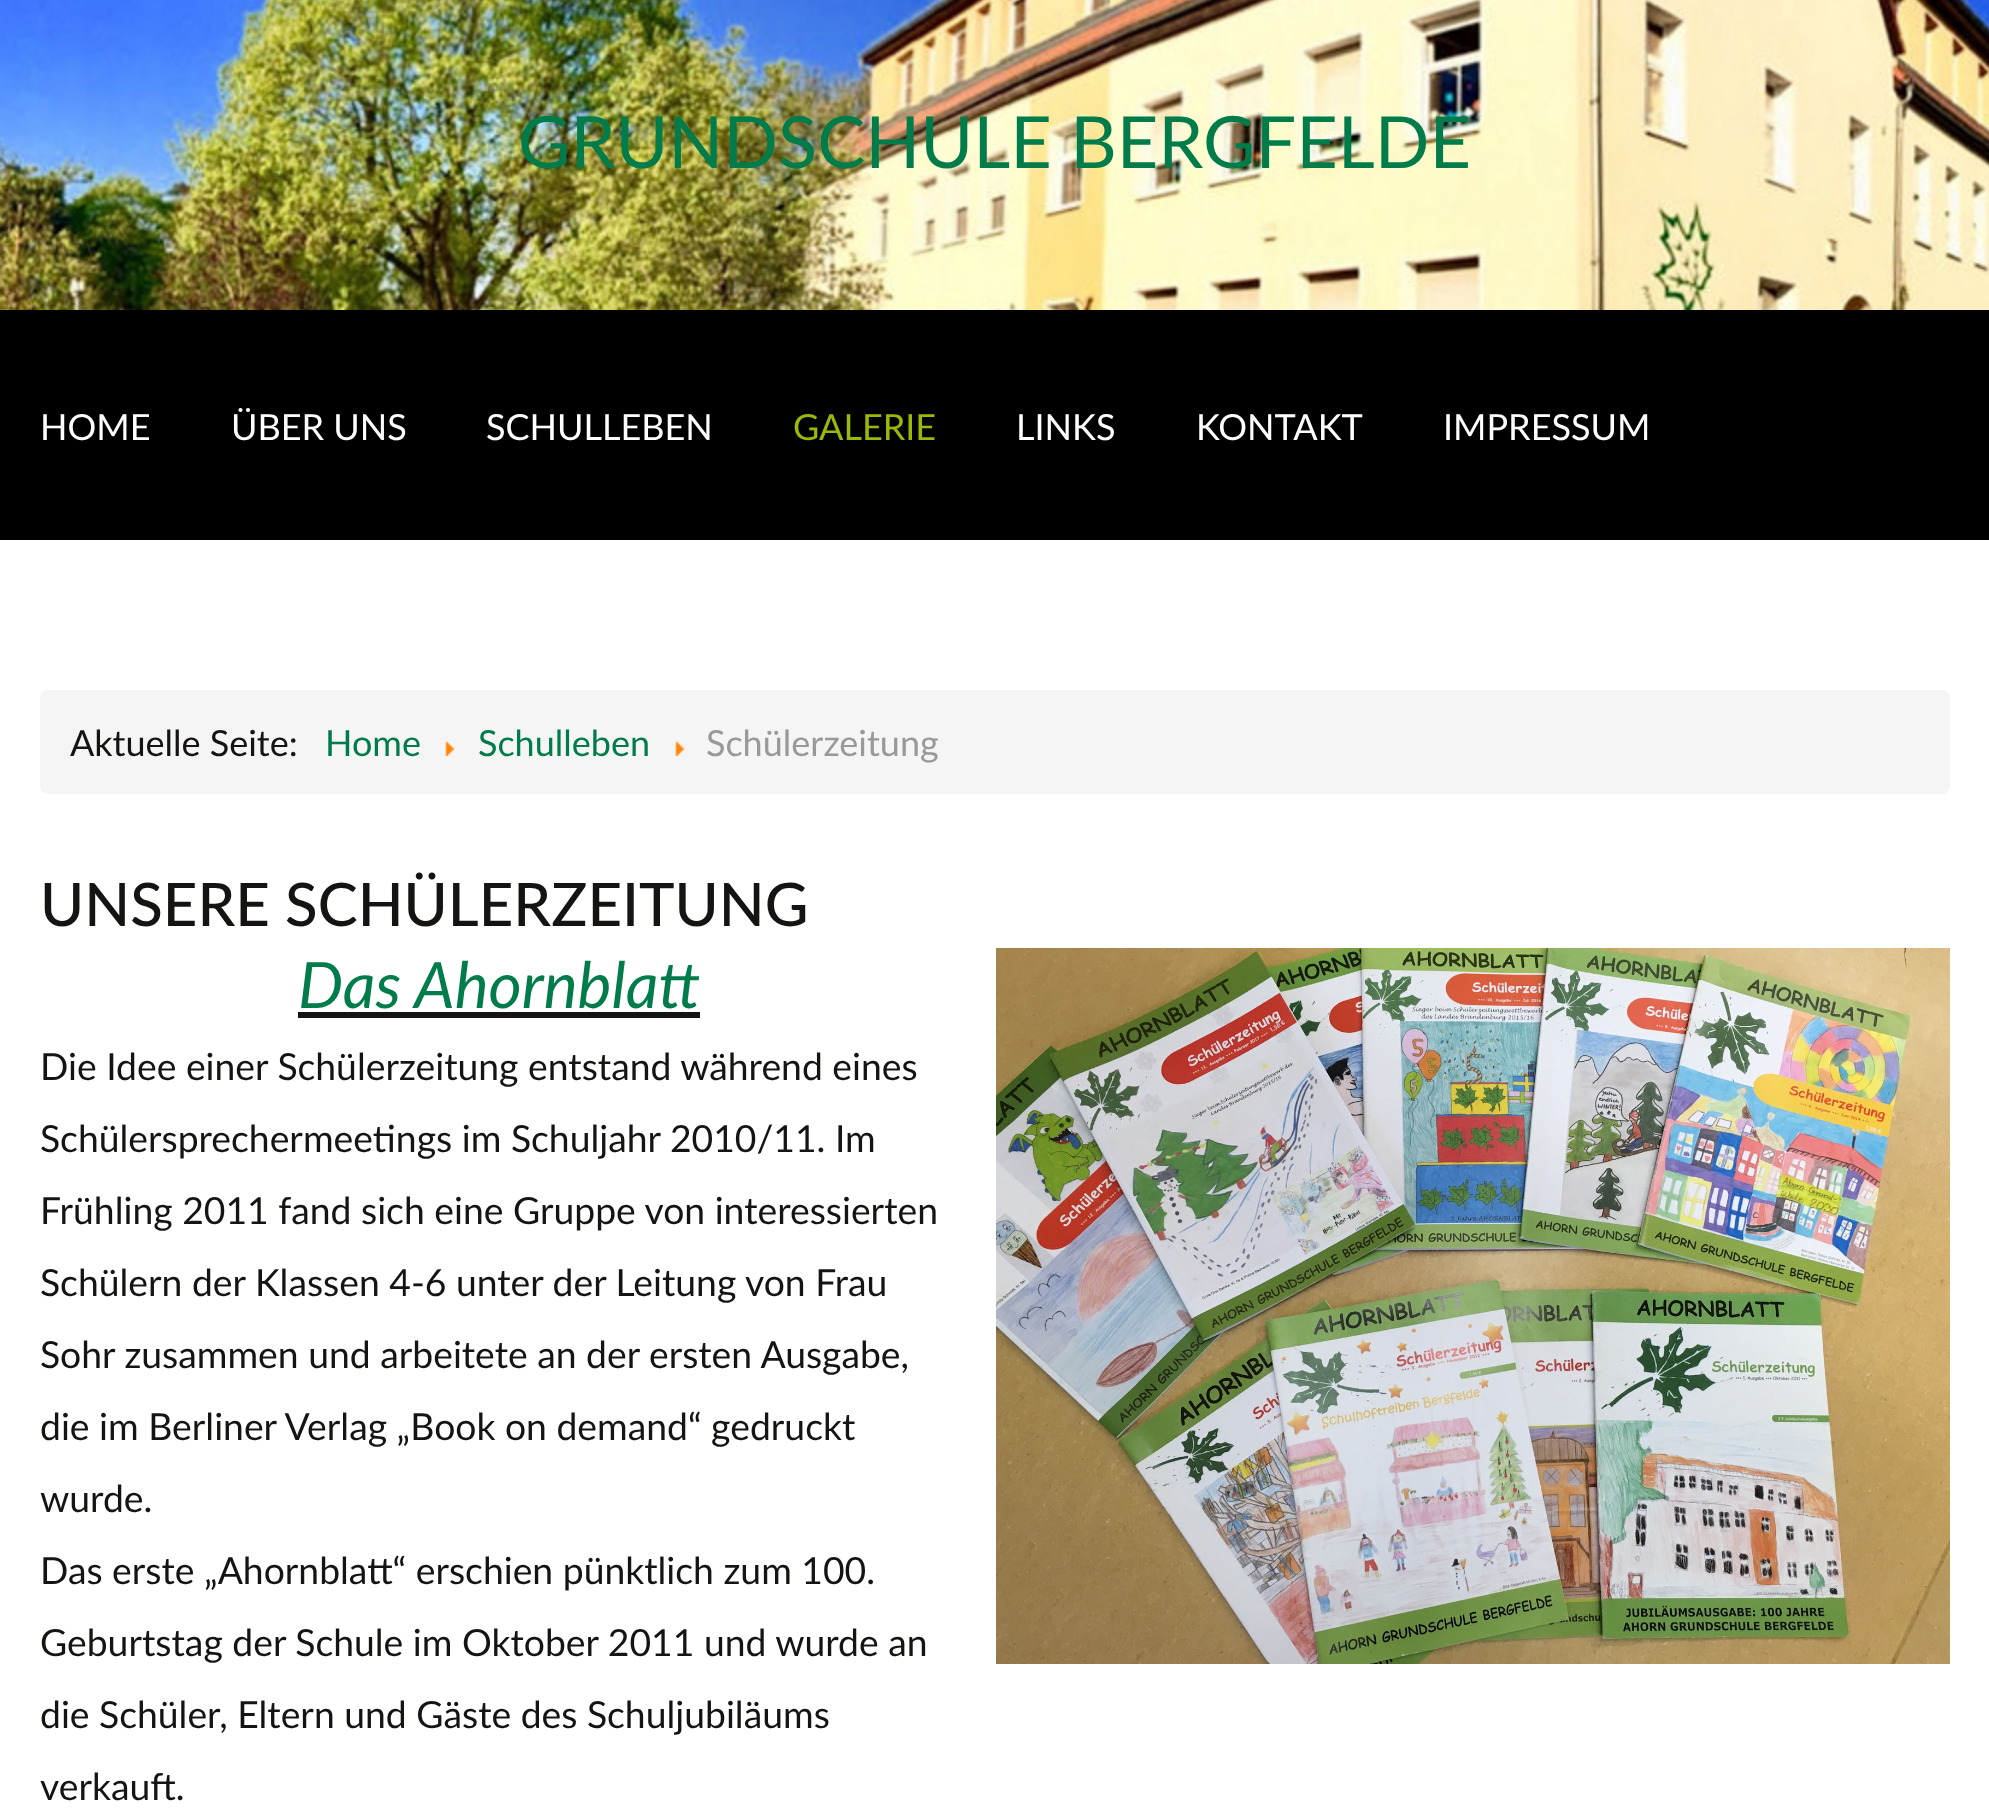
<svg xmlns="http://www.w3.org/2000/svg" width="1989" height="1813">
<rect width="100%" height="100%" fill="#fff"/>
<image x="0" y="0" width="1989" height="310" href="media/1.png"/>
<text x="518" y="168" style="font-family:Lato;font-size:72px;fill:#007b4a">GRUNDSCHULE BERGFELDE</text>
<rect y="310" width="1989" height="230" fill="#000"/>
<text x="40" y="440" style="font-family:Lato;font-size:36px;fill:#fff">HOME</text>
<text x="231" y="440" style="font-family:Lato;font-size:36px;fill:#fff">ÜBER UNS</text>
<text x="486" y="440" style="font-family:Lato;font-size:36px;fill:#fff">SCHULLEBEN</text>
<text x="793" y="440" style="font-family:Lato;font-size:36px;fill:#99b908">GALERIE</text>
<text x="1016" y="440" style="font-family:Lato;font-size:36px;fill:#fff">LINKS</text>
<text x="1196" y="440" style="font-family:Lato;font-size:36px;fill:#fff">KONTAKT</text>
<text x="1443" y="440" style="font-family:Lato;font-size:36px;fill:#fff">IMPRESSUM</text>
<rect x="40" y="690" width="1910" height="104" rx="8" fill="#f5f5f5"/>
<text x="70" y="756" style="font-family:Lato;font-size:36px;fill:#151413">Aktuelle Seite:</text>
<text x="325" y="756" style="font-family:Lato;font-size:36px;fill:#007b4a">Home</text>
<image x="445" y="741" width="10" height="15" href="media/2.png"/>
<text x="478" y="756" style="font-family:Lato;font-size:36px;fill:#007b4a">Schulleben</text>
<image x="675" y="741" width="10" height="15" href="media/2.png"/>
<text x="706" y="756" style="font-family:Lato;font-size:36px;fill:#999">Schülerzeitung</text>
<text x="40" y="926" style="font-family:Lato;font-size:60px;font-weight:500;fill:#151413">UNSERE SCHÜLERZEITUNG</text>
<text x="298" y="1008" style="font-family:Lato;font-size:64px;font-style:italic;fill:#007b4a">Das Ahornblatt</text>
<rect x="298" y="1012" width="402" height="6" fill="#151413"/>
<text x="40" y="1080" style="font-family:Lato;font-size:37.3px;fill:#151413">Die Idee einer Schülerzeitung entstand während eines</text>
<text x="40" y="1152" style="font-family:Lato;font-size:37.3px;fill:#151413">Schülersprechermeetings im Schuljahr 2010/11. Im</text>
<text x="40" y="1224" style="font-family:Lato;font-size:37.3px;fill:#151413">Frühling 2011 fand sich eine Gruppe von interessierten</text>
<text x="40" y="1296" style="font-family:Lato;font-size:37.3px;fill:#151413">Schülern der Klassen 4-6 unter der Leitung von Frau</text>
<text x="40" y="1368" style="font-family:Lato;font-size:37.3px;fill:#151413">Sohr zusammen und arbeitete an der ersten Ausgabe,</text>
<text x="40" y="1440" style="font-family:Lato;font-size:37.3px;fill:#151413">die im Berliner Verlag „Book on demand“ gedruckt</text>
<text x="40" y="1512" style="font-family:Lato;font-size:37.3px;fill:#151413">wurde.</text>
<text x="40" y="1584" style="font-family:Lato;font-size:37.3px;fill:#151413">Das erste „Ahornblatt“ erschien pünktlich zum 100.</text>
<text x="40" y="1656" style="font-family:Lato;font-size:37.3px;fill:#151413">Geburtstag der Schule im Oktober 2011 und wurde an</text>
<text x="40" y="1728" style="font-family:Lato;font-size:37.3px;fill:#151413">die Schüler, Eltern und Gäste des Schuljubiläums</text>
<text x="40" y="1800" style="font-family:Lato;font-size:37.3px;fill:#151413">verkauft.</text>
<image x="996" y="948" width="954" height="716" href="media/3.png"/>
</svg>
